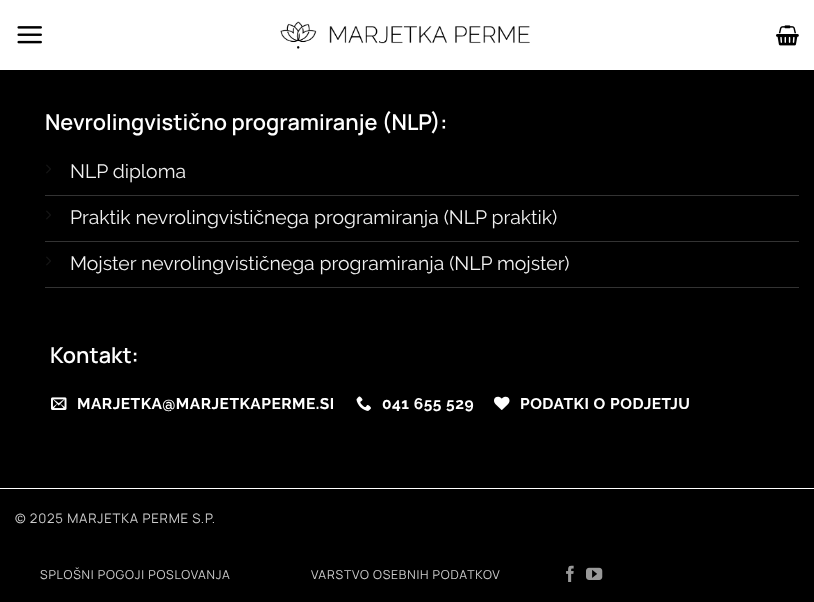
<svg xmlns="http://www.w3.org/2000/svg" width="814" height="602">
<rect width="100%" height="100%" fill="#000"/>
<rect width="814" height="70" fill="#fff"/>
<image x="17" y="26" width="25" height="18" href="media/1.png"/>
<image x="280" y="21" width="250" height="28" href="media/2.png"/>
<image x="776" y="25" width="23" height="21" href="media/3.png"/>
<text x="45" y="130" style="font-family:Manrope;font-size:21.75px;font-weight:600;fill:#fff">Nevrolingvistično programiranje (NLP):</text>
<rect x="45" y="195" width="754" height="1" fill="#333"/>
<image x="46" y="164" width="5" height="10" href="media/4.png"/>
<text x="70" y="178" style="font-family:Raleway;font-size:19.35px;fill:#f1f1f1">NLP diploma</text>
<rect x="45" y="241" width="754" height="1" fill="#333"/>
<image x="46" y="210" width="5" height="10" href="media/4.png"/>
<text x="70" y="224" style="font-family:Raleway;font-size:19.35px;fill:#f1f1f1">Praktik nevrolingvističnega programiranja (NLP praktik)</text>
<rect x="45" y="287" width="754" height="1" fill="#333"/>
<image x="46" y="256" width="5" height="10" href="media/4.png"/>
<text x="70" y="270" style="font-family:Raleway;font-size:19.35px;fill:#f1f1f1">Mojster nevrolingvističnega programiranja (NLP mojster)</text>
<text x="50" y="363" style="font-family:Manrope;font-size:21.75px;font-weight:600;fill:#fff">Kontakt:</text>
<image x="51" y="397" width="16" height="13" href="media/5.png"/>
<text x="77" y="409" style="font-family:Raleway;font-size:15.5px;font-weight:bold;letter-spacing:0.5px;fill:#fff">MARJETKA@MARJETKAPERME.SI</text>
<image x="356" y="396" width="15" height="15" href="media/6.png"/>
<text x="382" y="409" style="font-family:Raleway;font-size:15.5px;font-weight:bold;letter-spacing:0.5px;fill:#fff">041 655 529</text>
<image x="494" y="396" width="16" height="14" href="media/7.png"/>
<text x="520" y="409" style="font-family:Raleway;font-size:15.5px;font-weight:bold;letter-spacing:0.5px;fill:#fff">PODATKI O PODJETJU</text>
<rect y="488" width="814" height="1" fill="#fff"/>
<text x="15" y="523" style="font-family:Manrope;font-size:13.2px;letter-spacing:0.8px;fill:#ccc">© 2025 MARJETKA PERME S.P.</text>
<text x="40" y="579" style="font-family:Manrope;font-size:12.3px;letter-spacing:0.8px;fill:#ccc">SPLOŠNI POGOJI POSLOVANJA</text>
<text x="311" y="579" style="font-family:Manrope;font-size:12.3px;letter-spacing:0.8px;fill:#ccc">VARSTVO OSEBNIH PODATKOV</text>
<image x="566" y="565" width="8" height="17" href="media/8.png"/>
<image x="586" y="567" width="17" height="13" href="media/9.png"/>
</svg>
